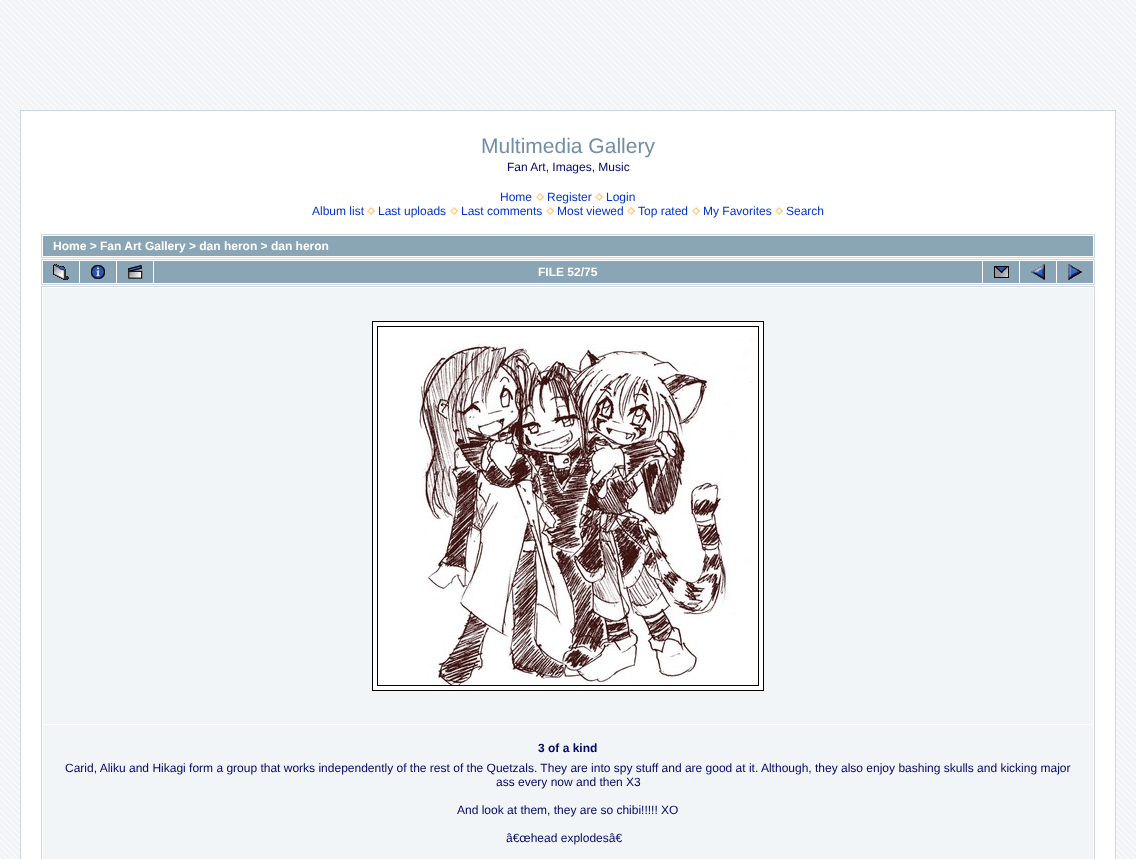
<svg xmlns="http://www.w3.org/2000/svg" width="1136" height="859">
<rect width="100%" height="100%" fill="#f2f5f7"/>
<image x="0" y="0" width="1136" height="859" href="media/1.png"/>
<rect x="20.5" y="110.5" width="1095" height="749" fill="#fff" stroke="#ccd7e0"/>
<text x="481" y="153" style="font-family:Liberation Sans;font-size:21px;fill:#718ea5">Multimedia Gallery</text>
<text x="507" y="171" style="font-family:Liberation Sans;font-size:12px;fill:#000666">Fan Art, Images, Music</text>
<text x="500" y="201" style="font-family:Liberation Sans;font-size:12px;fill:#03c">Home</text>
<image x="536" y="193" width="8" height="8" href="media/2.png"/>
<text x="547" y="201" style="font-family:Liberation Sans;font-size:12px;fill:#03c">Register</text>
<image x="595" y="193" width="8" height="8" href="media/2.png"/>
<text x="606" y="201" style="font-family:Liberation Sans;font-size:12px;fill:#03c">Login</text>
<text x="312" y="215" style="font-family:Liberation Sans;font-size:12px;fill:#03c">Album list</text>
<image x="367" y="207" width="8" height="8" href="media/2.png"/>
<text x="378" y="215" style="font-family:Liberation Sans;font-size:12px;fill:#03c">Last uploads</text>
<image x="450" y="207" width="8" height="8" href="media/2.png"/>
<text x="461" y="215" style="font-family:Liberation Sans;font-size:12px;fill:#03c">Last comments</text>
<image x="546" y="207" width="8" height="8" href="media/2.png"/>
<text x="557" y="215" style="font-family:Liberation Sans;font-size:12px;fill:#03c">Most viewed</text>
<image x="627" y="207" width="8" height="8" href="media/2.png"/>
<text x="638" y="215" style="font-family:Liberation Sans;font-size:12px;fill:#03c">Top rated</text>
<image x="692" y="207" width="8" height="8" href="media/2.png"/>
<text x="703" y="215" style="font-family:Liberation Sans;font-size:12px;fill:#03c">My Favorites</text>
<image x="775" y="207" width="8" height="8" href="media/2.png"/>
<text x="786" y="215" style="font-family:Liberation Sans;font-size:12px;fill:#03c">Search</text>
<rect x="41.5" y="234.5" width="1053" height="23" fill="none" stroke="#ccd7e0"/>
<rect x="43" y="236" width="1050" height="20" fill="#8aa5b5"/>
<text x="53" y="250" style="font-family:Liberation Sans;font-size:12px;font-weight:bold;fill:#fff">Home &gt; Fan Art Gallery &gt; dan heron &gt; dan heron</text>
<rect x="41.5" y="259.5" width="1053" height="25" fill="none" stroke="#ccd7e0"/>
<rect x="43" y="261" width="36" height="22" fill="#8aa5b5"/>
<image x="53" y="264" width="16" height="16" href="media/3.png"/>
<rect x="80" y="261" width="36" height="22" fill="#8aa5b5"/>
<image x="91" y="265" width="14" height="14" href="media/4.png"/>
<rect x="117" y="261" width="36" height="22" fill="#8aa5b5"/>
<image x="128" y="265" width="15" height="14" href="media/5.png"/>
<rect x="154" y="261" width="828" height="22" fill="#8aa5b5"/>
<text x="538" y="276" style="font-family:Liberation Sans;font-size:12px;font-weight:bold;fill:#fff">FILE 52/75</text>
<rect x="983" y="261" width="36" height="22" fill="#8aa5b5"/>
<image x="994" y="266" width="15" height="12" href="media/6.png"/>
<rect x="1020" y="261" width="36" height="22" fill="#8aa5b5"/>
<image x="1031" y="264" width="14" height="16" href="media/7.png"/>
<rect x="1057" y="261" width="36" height="22" fill="#8aa5b5"/>
<image x="1068" y="264" width="14" height="16" href="media/8.png"/>
<rect x="41.5" y="286.5" width="1053" height="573" fill="none" stroke="#ccd7e0"/>
<rect x="43" y="288" width="1050" height="436" fill="#f2f5f7"/>
<rect x="372.5" y="321.5" width="391" height="369" fill="#fff" stroke="#000"/>
<rect x="377.5" y="326.5" width="381" height="359" fill="none" stroke="#000"/>
<image x="417" y="338" width="341" height="347" href="media/9.png"/>
<rect x="43" y="725" width="1050" height="134" fill="#f2f5f7"/>
<text x="538" y="752" style="font-family:Liberation Sans;font-size:12px;font-weight:bold;fill:#000666">3 of a kind</text>
<text x="65" y="772" style="font-family:Liberation Sans;font-size:12px;fill:#000666">Carid, Aliku and Hikagi form a group that works independently of the rest of the Quetzals. They are into spy stuff and are good at it. Although, they also enjoy bashing skulls and kicking major</text>
<text x="496" y="786" style="font-family:Liberation Sans;font-size:12px;fill:#000666">ass every now and then X3</text>
<text x="457" y="814" style="font-family:Liberation Sans;font-size:12px;fill:#000666">And look at them, they are so chibi!!!!! XO</text>
<text x="506" y="842" style="font-family:Liberation Sans;font-size:12px;fill:#000666">â€œhead explodesâ€</text>
</svg>
